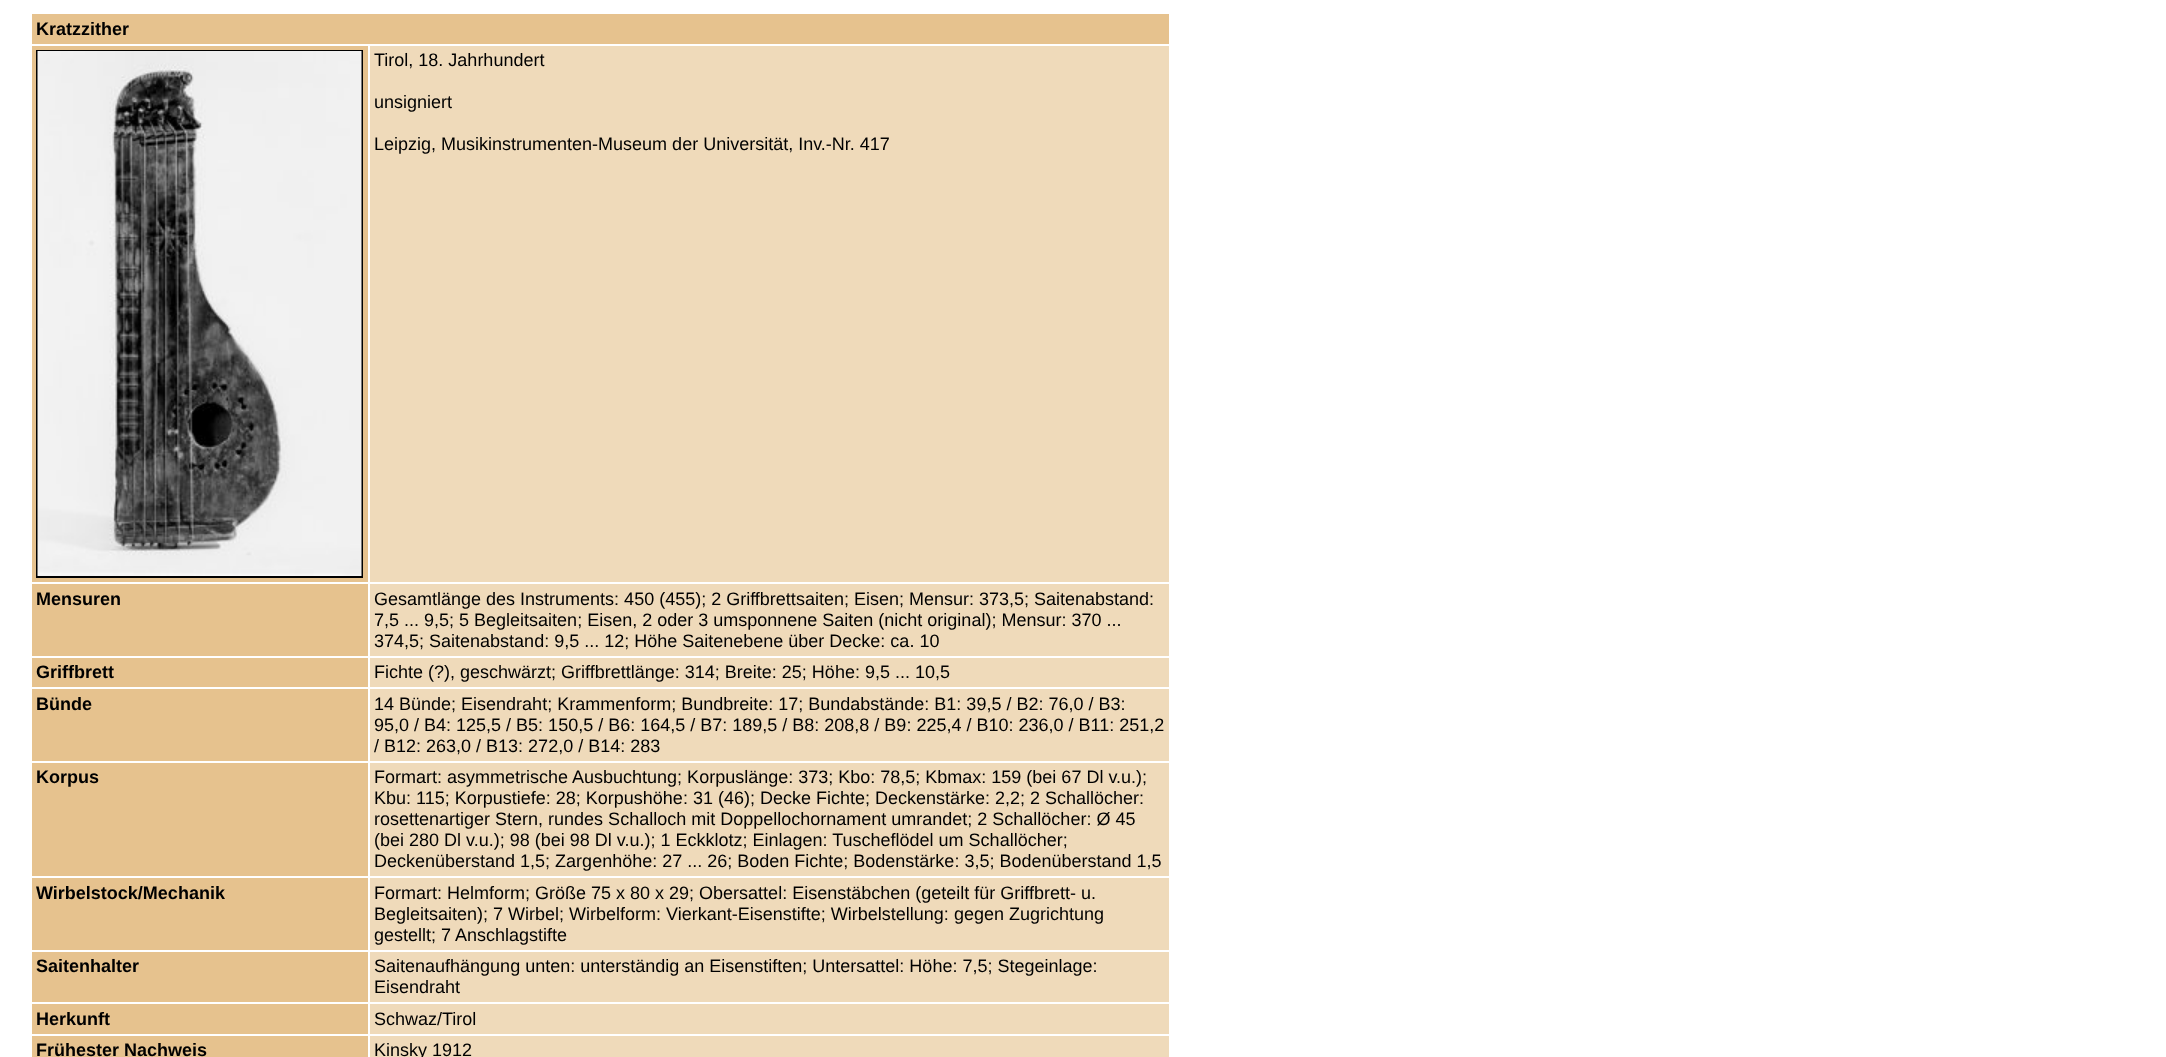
<svg xmlns="http://www.w3.org/2000/svg" width="2166" height="1057">
<rect width="100%" height="100%" fill="#fff"/>
<rect x="32" y="14" width="1137" height="30" fill="#e6c28e"/>
<text x="36" y="35" style="font-family:Liberation Sans;font-size:18px;font-weight:bold;fill:#000">Kratzzither</text>
<rect x="32" y="46" width="336" height="536" fill="#e6c28e"/>
<rect x="37" y="51" width="325" height="526" fill="none" stroke="#000" stroke-width="2"/>
<image x="37" y="51" width="325" height="525" href="media/1.png"/>
<rect x="370" y="46" width="799" height="536" fill="#efdaba"/>
<text x="374" y="66" style="font-family:Liberation Sans;font-size:18px;fill:#000">Tirol, 18. Jahrhundert</text>
<text x="374" y="108" style="font-family:Liberation Sans;font-size:18px;fill:#000">unsigniert</text>
<text x="374" y="150" style="font-family:Liberation Sans;font-size:18px;fill:#000">Leipzig, Musikinstrumenten-Museum der Universität, Inv.-Nr. 417</text>
<rect x="32" y="584" width="336" height="72" fill="#e6c28e"/>
<text x="36" y="605" style="font-family:Liberation Sans;font-size:18px;font-weight:bold;fill:#000">Mensuren</text>
<rect x="370" y="584" width="799" height="72" fill="#efdaba"/>
<text x="374" y="605" style="font-family:Liberation Sans;font-size:18px;fill:#000">Gesamtlänge des Instruments: 450 (455); 2 Griffbrettsaiten; Eisen; Mensur: 373,5; Saitenabstand:</text>
<text x="374" y="626" style="font-family:Liberation Sans;font-size:18px;fill:#000">7,5 ... 9,5; 5 Begleitsaiten; Eisen, 2 oder 3 umsponnene Saiten (nicht original); Mensur: 370 ...</text>
<text x="374" y="647" style="font-family:Liberation Sans;font-size:18px;fill:#000">374,5; Saitenabstand: 9,5 ... 12; Höhe Saitenebene über Decke: ca. 10</text>
<rect x="32" y="658" width="336" height="29" fill="#e6c28e"/>
<text x="36" y="678" style="font-family:Liberation Sans;font-size:18px;font-weight:bold;fill:#000">Griffbrett</text>
<rect x="370" y="658" width="799" height="29" fill="#efdaba"/>
<text x="374" y="678" style="font-family:Liberation Sans;font-size:18px;fill:#000">Fichte (?), geschwärzt; Griffbrettlänge: 314; Breite: 25; Höhe: 9,5 ... 10,5</text>
<rect x="32" y="689" width="336" height="72" fill="#e6c28e"/>
<text x="36" y="710" style="font-family:Liberation Sans;font-size:18px;font-weight:bold;fill:#000">Bünde</text>
<rect x="370" y="689" width="799" height="72" fill="#efdaba"/>
<text x="374" y="710" style="font-family:Liberation Sans;font-size:18px;fill:#000">14 Bünde; Eisendraht; Krammenform; Bundbreite: 17; Bundabstände: B1: 39,5 / B2: 76,0 / B3:</text>
<text x="374" y="731" style="font-family:Liberation Sans;font-size:18px;fill:#000">95,0 / B4: 125,5 / B5: 150,5 / B6: 164,5 / B7: 189,5 / B8: 208,8 / B9: 225,4 / B10: 236,0 / B11: 251,2</text>
<text x="374" y="752" style="font-family:Liberation Sans;font-size:18px;fill:#000">/ B12: 263,0 / B13: 272,0 / B14: 283</text>
<rect x="32" y="763" width="336" height="113" fill="#e6c28e"/>
<text x="36" y="783" style="font-family:Liberation Sans;font-size:18px;font-weight:bold;fill:#000">Korpus</text>
<rect x="370" y="763" width="799" height="113" fill="#efdaba"/>
<text x="374" y="783" style="font-family:Liberation Sans;font-size:18px;fill:#000">Formart: asymmetrische Ausbuchtung; Korpuslänge: 373; Kbo: 78,5; Kbmax: 159 (bei 67 Dl v.u.);</text>
<text x="374" y="804" style="font-family:Liberation Sans;font-size:18px;fill:#000">Kbu: 115; Korpustiefe: 28; Korpushöhe: 31 (46); Decke Fichte; Deckenstärke: 2,2; 2 Schallöcher:</text>
<text x="374" y="825" style="font-family:Liberation Sans;font-size:18px;fill:#000">rosettenartiger Stern, rundes Schalloch mit Doppellochornament umrandet; 2 Schallöcher: Ø 45</text>
<text x="374" y="846" style="font-family:Liberation Sans;font-size:18px;fill:#000">(bei 280 Dl v.u.); 98 (bei 98 Dl v.u.); 1 Eckklotz; Einlagen: Tuscheflödel um Schallöcher;</text>
<text x="374" y="867" style="font-family:Liberation Sans;font-size:18px;fill:#000">Deckenüberstand 1,5; Zargenhöhe: 27 ... 26; Boden Fichte; Bodenstärke: 3,5; Bodenüberstand 1,5</text>
<rect x="32" y="878" width="336" height="72" fill="#e6c28e"/>
<text x="36" y="899" style="font-family:Liberation Sans;font-size:18px;font-weight:bold;fill:#000">Wirbelstock/Mechanik</text>
<rect x="370" y="878" width="799" height="72" fill="#efdaba"/>
<text x="374" y="899" style="font-family:Liberation Sans;font-size:18px;fill:#000">Formart: Helmform; Größe 75 x 80 x 29; Obersattel: Eisenstäbchen (geteilt für Griffbrett- u.</text>
<text x="374" y="920" style="font-family:Liberation Sans;font-size:18px;fill:#000">Begleitsaiten); 7 Wirbel; Wirbelform: Vierkant-Eisenstifte; Wirbelstellung: gegen Zugrichtung</text>
<text x="374" y="941" style="font-family:Liberation Sans;font-size:18px;fill:#000">gestellt; 7</text>
<text x="455" y="941" style="font-family:Liberation Sans;font-size:18px;fill:#000">Anschlagstifte</text>
<rect x="32" y="952" width="336" height="50" fill="#e6c28e"/>
<text x="36" y="972" style="font-family:Liberation Sans;font-size:18px;font-weight:bold;fill:#000">Saitenhalter</text>
<rect x="370" y="952" width="799" height="50" fill="#efdaba"/>
<text x="374" y="972" style="font-family:Liberation Sans;font-size:18px;fill:#000">Saitenaufhängung unten: unterständig an Eisenstiften; Untersattel: Höhe: 7,5; Stegeinlage:</text>
<text x="374" y="993" style="font-family:Liberation Sans;font-size:18px;fill:#000">Eisendraht</text>
<rect x="32" y="1004" width="336" height="30" fill="#e6c28e"/>
<text x="36" y="1025" style="font-family:Liberation Sans;font-size:18px;font-weight:bold;fill:#000">Herkunft</text>
<rect x="370" y="1004" width="799" height="30" fill="#efdaba"/>
<text x="374" y="1025" style="font-family:Liberation Sans;font-size:18px;fill:#000">Schwaz/Tirol</text>
<rect x="32" y="1036" width="336" height="21" fill="#e6c28e"/>
<text x="36" y="1056" style="font-family:Liberation Sans;font-size:18px;font-weight:bold;fill:#000">Frühester Nachweis</text>
<rect x="370" y="1036" width="799" height="21" fill="#efdaba"/>
<text x="374" y="1056" style="font-family:Liberation Sans;font-size:18px;fill:#000">Kinsky 1912</text>
</svg>
